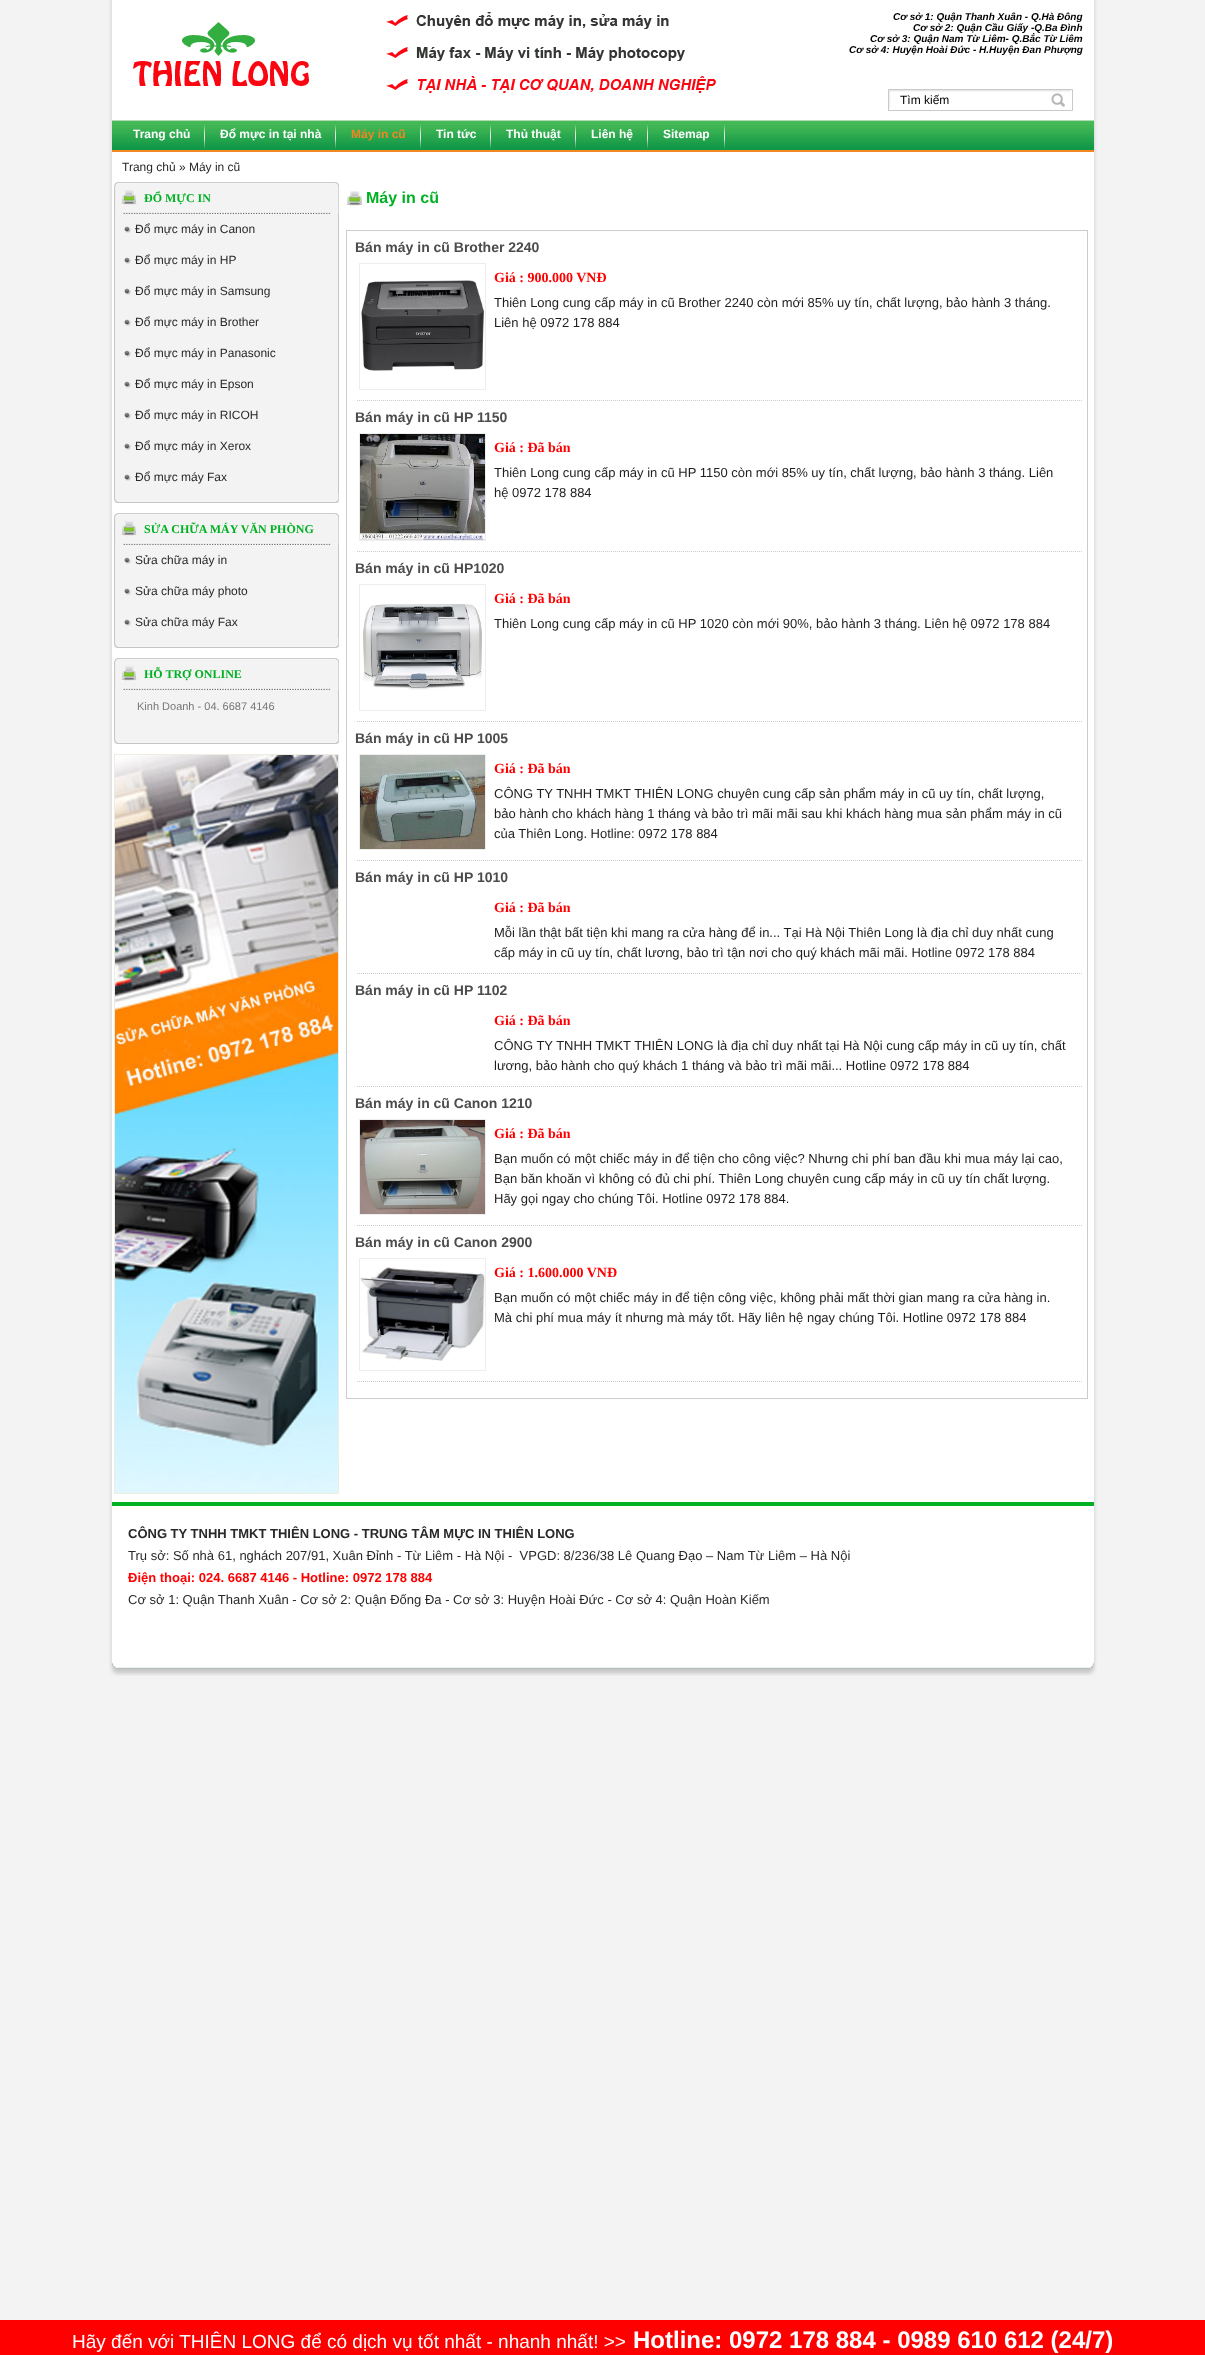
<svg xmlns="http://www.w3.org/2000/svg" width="1205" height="2355">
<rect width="100%" height="100%" fill="#f3f3f3"/>
<image x="103" y="0" width="1000" height="152" href="media/1.png"/>
<image x="133" y="12" width="583" height="82" href="media/2.png"/>
<text x="893" y="20" style="font-family:Liberation Sans;font-size:10px;font-weight:bold;font-style:italic;fill:#000">Cơ sở 1: Quận Thanh Xuân - Q.Hà Đông</text>
<text x="913" y="31" style="font-family:Liberation Sans;font-size:10px;font-weight:bold;font-style:italic;fill:#000">Cơ sở 2: Quận Cầu Giấy -Q.Ba Đình</text>
<text x="870" y="42" style="font-family:Liberation Sans;font-size:10px;font-weight:bold;font-style:italic;fill:#000">Cơ sở 3: Quận Nam Từ Liêm- Q.Bắc Từ Liêm</text>
<text x="849" y="53" style="font-family:Liberation Sans;font-size:10px;font-weight:bold;font-style:italic;fill:#000">Cơ sở 4: Huyện Hoài Đức - H.Huyện Đan Phượng</text>
<image x="888" y="89" width="158" height="22" href="media/3.png"/>
<text x="900" y="104" style="font-family:Liberation Sans;font-size:12px;fill:#000">Tìm kiếm</text>
<image x="1046" y="89" width="27" height="22" href="media/4.png"/>
<image x="112" y="120" width="982" height="32" href="media/5.png"/>
<image x="204" y="121" width="1" height="28" href="media/6.png"/>
<text x="133" y="138" style="font-family:Liberation Sans;font-size:12px;font-weight:bold;fill:#fff">Trang chủ</text>
<image x="335" y="121" width="1" height="28" href="media/6.png"/>
<text x="220" y="138" style="font-family:Liberation Sans;font-size:12px;font-weight:bold;fill:#fff">Đổ mực in tại nhà</text>
<image x="420" y="121" width="1" height="28" href="media/6.png"/>
<text x="351" y="138" style="font-family:Liberation Sans;font-size:12px;font-weight:bold;fill:#f18622">Máy in cũ</text>
<image x="490" y="121" width="1" height="28" href="media/6.png"/>
<text x="436" y="138" style="font-family:Liberation Sans;font-size:12px;font-weight:bold;fill:#fff">Tin tức</text>
<image x="575" y="121" width="1" height="28" href="media/6.png"/>
<text x="506" y="138" style="font-family:Liberation Sans;font-size:12px;font-weight:bold;fill:#fff">Thủ thuật</text>
<image x="647" y="121" width="1" height="28" href="media/6.png"/>
<text x="591" y="138" style="font-family:Liberation Sans;font-size:12px;font-weight:bold;fill:#fff">Liên hệ</text>
<image x="724" y="121" width="1" height="28" href="media/6.png"/>
<text x="663" y="138" style="font-family:Liberation Sans;font-size:12px;font-weight:bold;fill:#fff">Sitemap</text>
<image x="103" y="152" width="1000" height="1509" href="media/7.png"/>
<text x="122" y="171" style="font-family:Liberation Sans;font-size:12px;fill:#292929">Trang chủ » Máy in cũ</text>
<image x="114" y="182" width="225" height="32" href="media/8.png"/>
<text x="144" y="202" style="font-family:Liberation Serif;font-size:12px;font-weight:bold;fill:#00b123">ĐỔ MỰC IN</text>
<rect x="115" y="214" width="223" height="279" fill="#f3f3f3"/>
<image x="124" y="226" width="7" height="7" href="media/9.png"/>
<rect x="338" y="214" width="1" height="279" fill="#c4c4c4"/>
<rect x="114" y="214" width="1" height="279" fill="#c4c4c4"/>
<text x="135" y="233" style="font-family:Liberation Sans;font-size:12px;fill:#292929">Đổ mực máy in Canon</text>
<image x="124" y="257" width="7" height="7" href="media/9.png"/>
<text x="135" y="264" style="font-family:Liberation Sans;font-size:12px;fill:#292929">Đổ mực máy in HP</text>
<image x="124" y="288" width="7" height="7" href="media/9.png"/>
<text x="135" y="295" style="font-family:Liberation Sans;font-size:12px;fill:#292929">Đổ mực máy in Samsung</text>
<image x="124" y="319" width="7" height="7" href="media/9.png"/>
<text x="135" y="326" style="font-family:Liberation Sans;font-size:12px;fill:#292929">Đổ mực máy in Brother</text>
<image x="124" y="350" width="7" height="7" href="media/9.png"/>
<text x="135" y="357" style="font-family:Liberation Sans;font-size:12px;fill:#292929">Đổ mực máy in Panasonic</text>
<image x="124" y="381" width="7" height="7" href="media/9.png"/>
<text x="135" y="388" style="font-family:Liberation Sans;font-size:12px;fill:#292929">Đổ mực máy in Epson</text>
<image x="124" y="412" width="7" height="7" href="media/9.png"/>
<text x="135" y="419" style="font-family:Liberation Sans;font-size:12px;fill:#292929">Đổ mực máy in RICOH</text>
<image x="124" y="443" width="7" height="7" href="media/9.png"/>
<text x="135" y="450" style="font-family:Liberation Sans;font-size:12px;fill:#292929">Đổ mực máy in Xerox</text>
<image x="124" y="474" width="7" height="7" href="media/9.png"/>
<text x="135" y="481" style="font-family:Liberation Sans;font-size:12px;fill:#292929">Đổ mực máy Fax</text>
<image x="114" y="493" width="225" height="10" href="media/10.png"/>
<image x="114" y="513" width="225" height="32" href="media/8.png"/>
<text x="144" y="533" style="font-family:Liberation Serif;font-size:12px;font-weight:bold;fill:#00b123">SỬA CHỮA MÁY VĂN PHÒNG</text>
<rect x="115" y="545" width="223" height="93" fill="#f3f3f3"/>
<image x="124" y="557" width="7" height="7" href="media/9.png"/>
<rect x="338" y="545" width="1" height="93" fill="#c4c4c4"/>
<rect x="114" y="545" width="1" height="93" fill="#c4c4c4"/>
<text x="135" y="564" style="font-family:Liberation Sans;font-size:12px;fill:#292929">Sửa chữa máy in</text>
<image x="124" y="588" width="7" height="7" href="media/9.png"/>
<text x="135" y="595" style="font-family:Liberation Sans;font-size:12px;fill:#292929">Sửa chữa máy photo</text>
<image x="124" y="619" width="7" height="7" href="media/9.png"/>
<text x="135" y="626" style="font-family:Liberation Sans;font-size:12px;fill:#292929">Sửa chữa máy Fax</text>
<image x="114" y="638" width="225" height="10" href="media/10.png"/>
<image x="114" y="658" width="225" height="32" href="media/8.png"/>
<text x="144" y="678" style="font-family:Liberation Serif;font-size:12px;font-weight:bold;fill:#00b123">HỖ TRỢ ONLINE</text>
<rect x="115" y="690" width="223" height="44" fill="#f3f3f3"/>
<rect x="338" y="690" width="1" height="44" fill="#c4c4c4"/>
<rect x="114" y="690" width="1" height="44" fill="#c4c4c4"/>
<text x="137" y="710" style="font-family:Liberation Sans;font-size:11px;fill:#777">Kinh Doanh - 04. 6687 4146</text>
<image x="114" y="734" width="225" height="10" href="media/10.png"/>
<rect x="114.5" y="754.5" width="224" height="739" fill="none" stroke="#edede0"/>
<image x="115" y="755" width="223" height="738" href="media/11.png"/>
<image x="346" y="191" width="17" height="15" href="media/12.png"/>
<text x="366" y="203" style="font-family:Liberation Sans;font-size:16px;font-weight:bold;fill:#00b123">Máy in cũ</text>
<rect x="346.5" y="230.5" width="741" height="1168" fill="none" stroke="#ccc"/>
<text x="355" y="252" style="font-family:Liberation Sans;font-size:14px;font-weight:bold;fill:#4c4c4c">Bán máy in cũ Brother 2240</text>
<path d="M357 400.5h726" fill="none" stroke="#ccc" stroke-dasharray="1 1"/>
<rect x="359.5" y="263.5" width="126" height="126" fill="none" stroke="#eee"/>
<image x="361" y="280" width="124" height="91" href="media/13.png"/>
<text x="494" y="282" style="font-family:Liberation Serif;font-size:14px;font-weight:bold;fill:#f00">Giá : 900.000 VNĐ</text>
<text x="494" y="307" style="font-family:Liberation Sans;font-size:13px;fill:#1f1f1f">Thiên Long cung cấp máy in cũ Brother 2240 còn mới 85% uy tín, chất lượng, bảo hành 3 tháng.</text>
<text x="494" y="327" style="font-family:Liberation Sans;font-size:13px;fill:#1f1f1f">Liên hệ 0972 178 884</text>
<text x="355" y="422" style="font-family:Liberation Sans;font-size:14px;font-weight:bold;fill:#4c4c4c">Bán máy in cũ HP 1150</text>
<path d="M357 551.5h726" fill="none" stroke="#ccc" stroke-dasharray="1 1"/>
<rect x="359.5" y="433.5" width="126" height="107" fill="none" stroke="#eee"/>
<image x="360" y="434" width="125" height="106" href="media/14.png"/>
<text x="494" y="452" style="font-family:Liberation Serif;font-size:14px;font-weight:bold;fill:#f00">Giá : Đã bán</text>
<text x="494" y="477" style="font-family:Liberation Sans;font-size:13px;fill:#1f1f1f">Thiên Long cung cấp máy in cũ HP 1150 còn mới 85% uy tín, chất lượng, bảo hành 3 tháng. Liên</text>
<text x="494" y="497" style="font-family:Liberation Sans;font-size:13px;fill:#1f1f1f">hệ 0972 178 884</text>
<text x="355" y="573" style="font-family:Liberation Sans;font-size:14px;font-weight:bold;fill:#4c4c4c">Bán máy in cũ HP1020</text>
<path d="M357 721.5h726" fill="none" stroke="#ccc" stroke-dasharray="1 1"/>
<rect x="359.5" y="584.5" width="126" height="126" fill="none" stroke="#eee"/>
<image x="363" y="604" width="119" height="86" href="media/15.png"/>
<text x="494" y="603" style="font-family:Liberation Serif;font-size:14px;font-weight:bold;fill:#f00">Giá : Đã bán</text>
<text x="494" y="628" style="font-family:Liberation Sans;font-size:13px;fill:#1f1f1f">Thiên Long cung cấp máy in cũ HP 1020 còn mới 90%, bảo hành 3 tháng. Liên hệ 0972 178 884</text>
<text x="355" y="743" style="font-family:Liberation Sans;font-size:14px;font-weight:bold;fill:#4c4c4c">Bán máy in cũ HP 1005</text>
<path d="M357 860.5h726" fill="none" stroke="#ccc" stroke-dasharray="1 1"/>
<rect x="359.5" y="754.5" width="126" height="95" fill="none" stroke="#eee"/>
<image x="360" y="755" width="125" height="94" href="media/16.png"/>
<text x="494" y="773" style="font-family:Liberation Serif;font-size:14px;font-weight:bold;fill:#f00">Giá : Đã bán</text>
<text x="494" y="798" style="font-family:Liberation Sans;font-size:13px;fill:#1f1f1f">CÔNG TY TNHH TMKT THIÊN LONG chuyên cung cấp sản phẩm máy in cũ uy tín, chất lượng,</text>
<text x="494" y="818" style="font-family:Liberation Sans;font-size:13px;fill:#1f1f1f">bảo hành cho khách hàng 1 tháng và bảo trì mãi mãi sau khi khách hàng mua sản phẩm máy in cũ</text>
<text x="494" y="838" style="font-family:Liberation Sans;font-size:13px;fill:#1f1f1f">của Thiên Long. Hotline: 0972 178 884</text>
<text x="355" y="882" style="font-family:Liberation Sans;font-size:14px;font-weight:bold;fill:#4c4c4c">Bán máy in cũ HP 1010</text>
<path d="M357 973.5h726" fill="none" stroke="#ccc" stroke-dasharray="1 1"/>
<text x="494" y="912" style="font-family:Liberation Serif;font-size:14px;font-weight:bold;fill:#f00">Giá : Đã bán</text>
<text x="494" y="937" style="font-family:Liberation Sans;font-size:13px;fill:#1f1f1f">Mỗi lần thật bất tiện khi mang ra cửa hàng để in... Tại Hà Nội Thiên Long là địa chỉ duy nhất cung</text>
<text x="494" y="957" style="font-family:Liberation Sans;font-size:13px;fill:#1f1f1f">cấp máy in cũ uy tín, chất lương, bảo trì tận nơi cho quý khách mãi mãi. Hotline 0972 178 884</text>
<text x="355" y="995" style="font-family:Liberation Sans;font-size:14px;font-weight:bold;fill:#4c4c4c">Bán máy in cũ HP 1102</text>
<path d="M357 1086.5h726" fill="none" stroke="#ccc" stroke-dasharray="1 1"/>
<text x="494" y="1025" style="font-family:Liberation Serif;font-size:14px;font-weight:bold;fill:#f00">Giá : Đã bán</text>
<text x="494" y="1050" style="font-family:Liberation Sans;font-size:13px;fill:#1f1f1f">CÔNG TY TNHH TMKT THIÊN LONG là địa chỉ duy nhất tại Hà Nội cung cấp máy in cũ uy tín, chất</text>
<text x="494" y="1070" style="font-family:Liberation Sans;font-size:13px;fill:#1f1f1f">lương, bảo hành cho quý khách 1 tháng và bảo trì mãi mãi... Hotline 0972 178 884</text>
<text x="355" y="1108" style="font-family:Liberation Sans;font-size:14px;font-weight:bold;fill:#4c4c4c">Bán máy in cũ Canon 1210</text>
<path d="M357 1225.5h726" fill="none" stroke="#ccc" stroke-dasharray="1 1"/>
<rect x="359.5" y="1119.5" width="126" height="95" fill="none" stroke="#eee"/>
<image x="360" y="1120" width="125" height="94" href="media/17.png"/>
<text x="494" y="1138" style="font-family:Liberation Serif;font-size:14px;font-weight:bold;fill:#f00">Giá : Đã bán</text>
<text x="494" y="1163" style="font-family:Liberation Sans;font-size:13px;fill:#1f1f1f">Bạn muốn có một chiếc máy in để tiện cho công việc? Nhưng chi phí ban đầu khi mua máy lại cao,</text>
<text x="494" y="1183" style="font-family:Liberation Sans;font-size:13px;fill:#1f1f1f">Bạn băn khoăn vì không có đủ chi phí. Thiên Long chuyên cung cấp máy in cũ uy tín chất lượng.</text>
<text x="494" y="1203" style="font-family:Liberation Sans;font-size:13px;fill:#1f1f1f">Hãy gọi ngay cho chúng Tôi. Hotline 0972 178 884.</text>
<text x="355" y="1247" style="font-family:Liberation Sans;font-size:14px;font-weight:bold;fill:#4c4c4c">Bán máy in cũ Canon 2900</text>
<path d="M357 1381.5h726" fill="none" stroke="#ccc" stroke-dasharray="1 1"/>
<rect x="359.5" y="1258.5" width="126" height="112" fill="none" stroke="#eee"/>
<image x="360" y="1267" width="125" height="94" href="media/18.png"/>
<text x="494" y="1277" style="font-family:Liberation Serif;font-size:14px;font-weight:bold;fill:#f00">Giá : 1.600.000 VNĐ</text>
<text x="494" y="1302" style="font-family:Liberation Sans;font-size:13px;fill:#1f1f1f">Bạn muốn có một chiếc máy in để tiện công việc, không phải mất thời gian mang ra cửa hàng in.</text>
<text x="494" y="1322" style="font-family:Liberation Sans;font-size:13px;fill:#1f1f1f">Mà chi phí mua máy ít nhưng mà máy tốt. Hãy liên hệ ngay chúng Tôi. Hotline 0972 178 884</text>
<rect x="112" y="1502" width="982" height="4" fill="#00b123"/>
<text x="128" y="1538" style="font-family:Liberation Sans;font-size:13px;font-weight:bold;fill:#292929">CÔNG TY TNHH TMKT THIÊN LONG - TRUNG TÂM MỰC IN THIÊN LONG</text>
<text x="128" y="1560" style="font-family:Liberation Sans;font-size:13px;fill:#292929" xml:space="preserve">Trụ sở: Số nhà 61, nghách 207/91, Xuân Đỉnh - Từ Liêm - Hà Nội -  VPGD: 8/236/38 Lê Quang Đạo – Nam Từ Liêm – Hà Nội</text>
<text x="128" y="1582" style="font-family:Liberation Sans;font-size:13px;font-weight:bold;fill:#f00">Điện thoại: 024. 6687 4146 - Hotline: 0972 178 884</text>
<text x="128" y="1604" style="font-family:Liberation Sans;font-size:13px;fill:#292929">Cơ sở 1: Quận Thanh Xuân - Cơ sở 2: Quận Đống Đa - Cơ sở 3: Huyện Hoài Đức - Cơ sở 4: Quận Hoàn Kiếm</text>
<image x="109" y="1661" width="988" height="15" href="media/19.png"/>
<rect y="2320" width="1205" height="35" fill="#f00"/>
<text x="72" y="2348" style="font-family:Liberation Sans;font-size:19px;fill:#fff">Hãy đến với THIÊN LONG để có dịch vụ tốt nhất - nhanh nhất! &gt;&gt;</text>
<text x="633" y="2348" style="font-family:Liberation Sans;font-size:24px;font-weight:bold;fill:#fff">Hotline: 0972 178 884 - 0989 610 612 (24/7)</text>
</svg>
